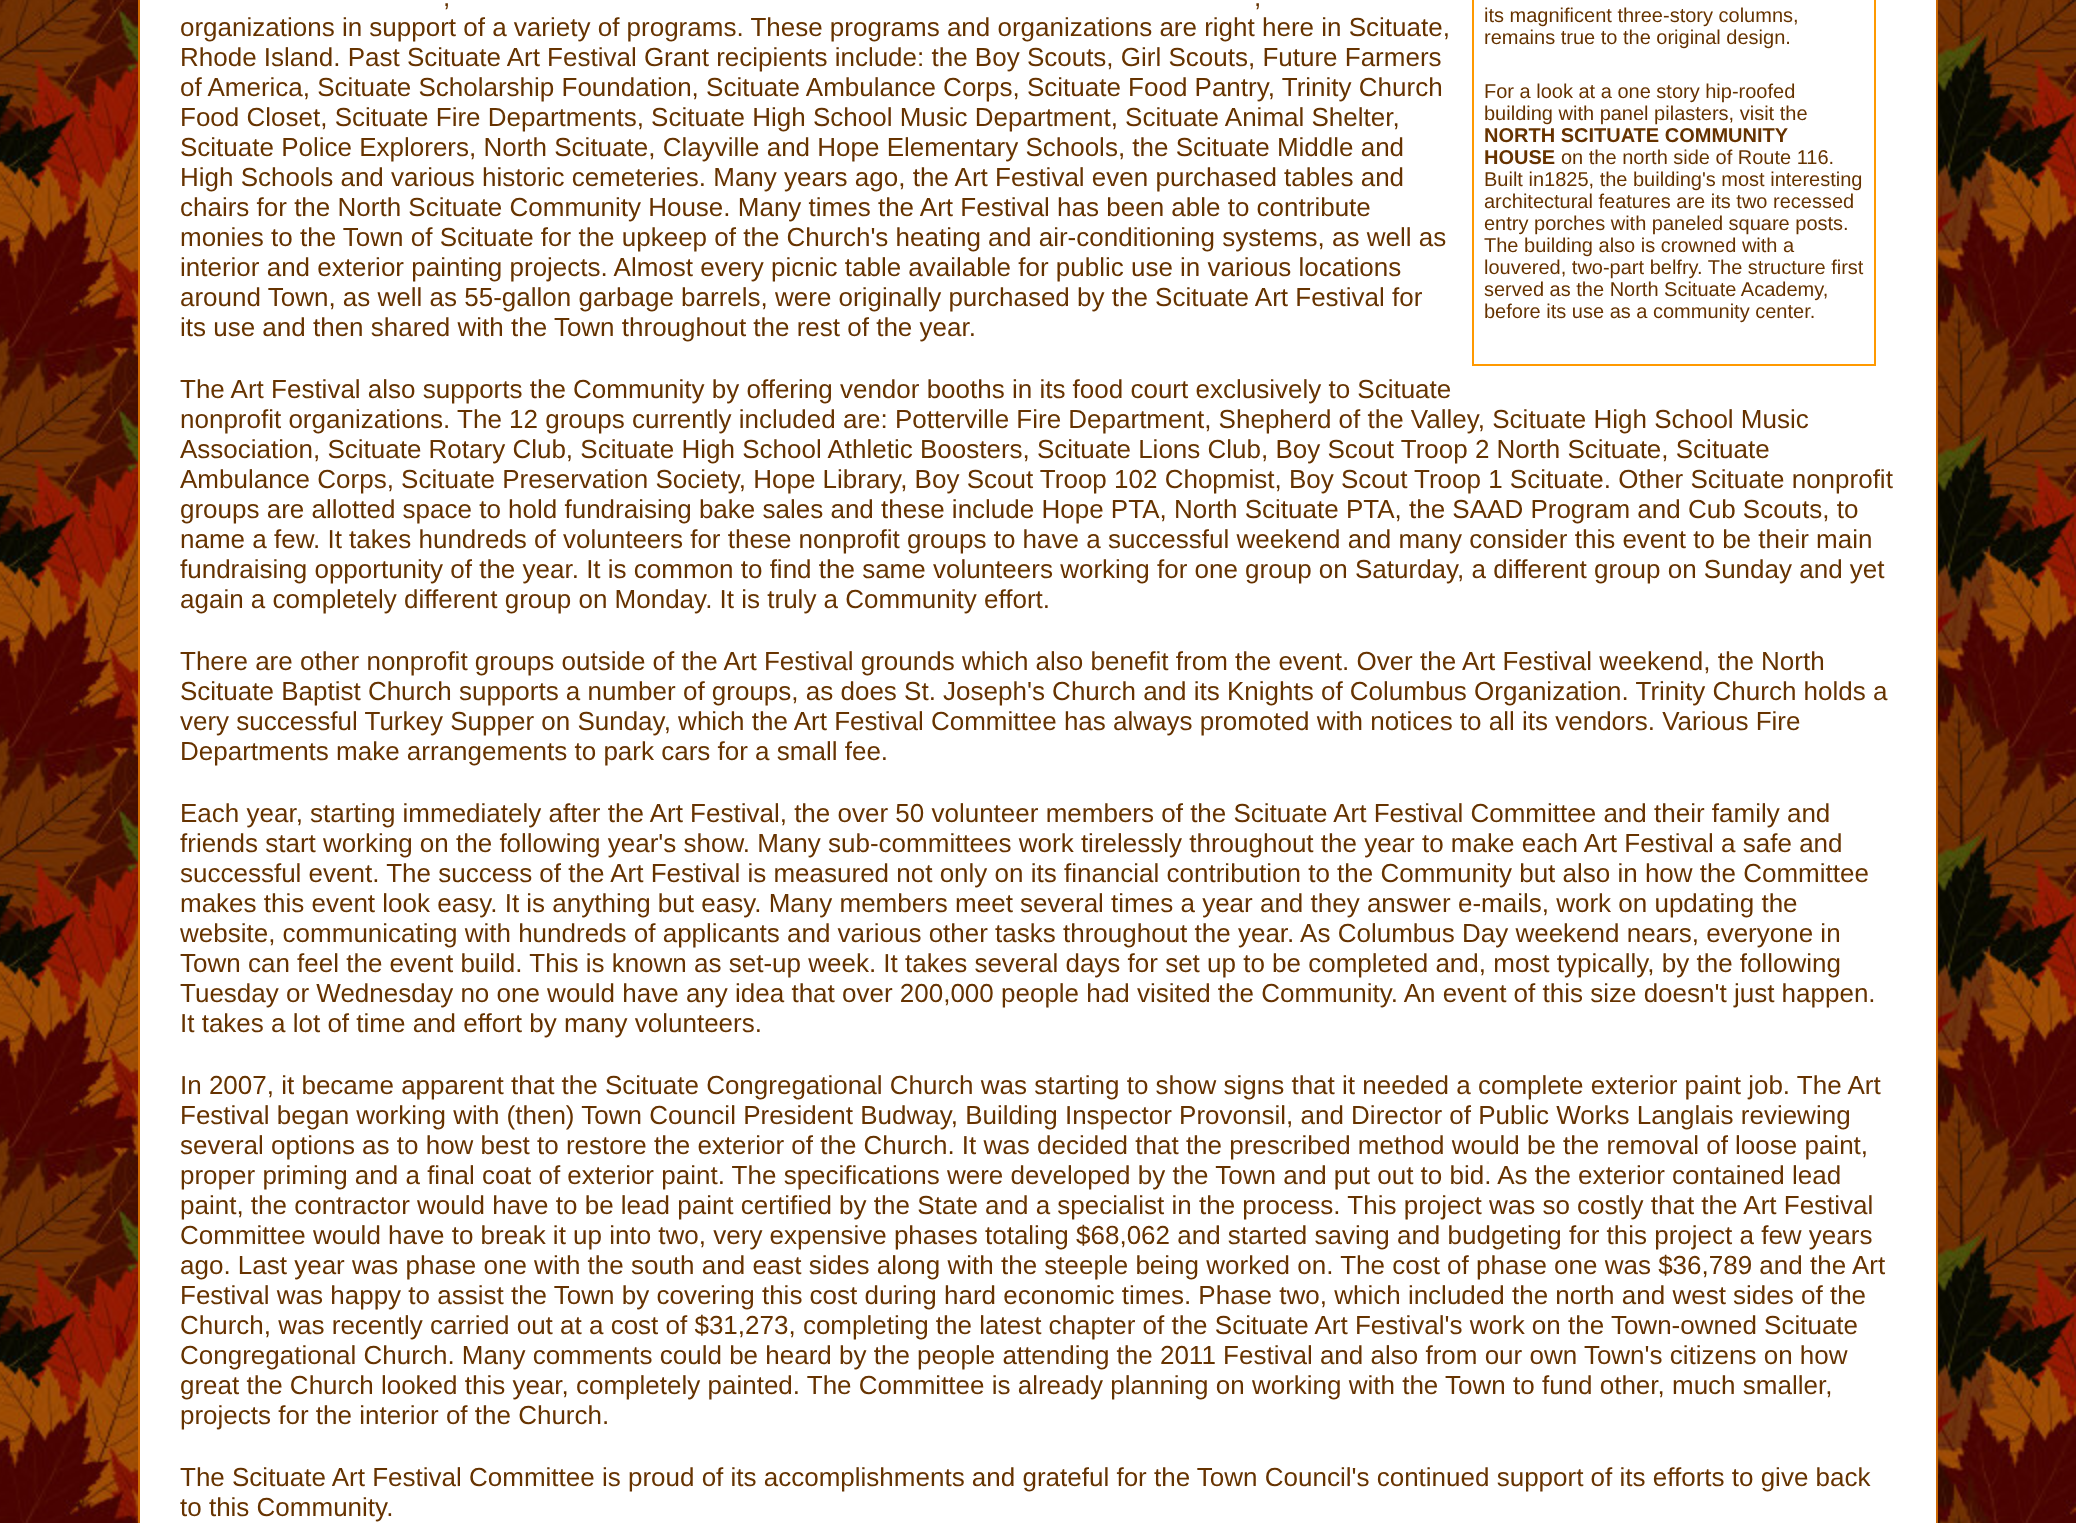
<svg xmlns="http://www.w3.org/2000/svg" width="2076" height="1523">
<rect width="100%" height="100%" fill="#fff"/>
<image x="0" y="0" width="2076" height="1523" href="media/1.png"/>
<rect x="138" width="1800" height="1523" fill="#c60"/>
<rect x="140" width="1796" height="1523" fill="#fff"/>
<text x="443" y="6" style="font-family:Liberation Sans;font-size:26px;fill:#630">,</text>
<text x="1254" y="6" style="font-family:Liberation Sans;font-size:26px;fill:#630">,</text>
<text x="180" y="36" style="font-family:Liberation Sans;font-size:26px;fill:#630">organizations in support of a variety of programs. These programs and organizations are right here in Scituate,</text>
<text x="180" y="66" style="font-family:Liberation Sans;font-size:26px;fill:#630">Rhode Island. Past Scituate Art Festival Grant recipients include: the Boy Scouts, Girl Scouts, Future Farmers</text>
<text x="180" y="96" style="font-family:Liberation Sans;font-size:26px;fill:#630">of America, Scituate Scholarship Foundation, Scituate Ambulance Corps, Scituate Food Pantry, Trinity Church</text>
<text x="180" y="126" style="font-family:Liberation Sans;font-size:26px;fill:#630">Food Closet, Scituate Fire Departments, Scituate High School Music Department, Scituate Animal Shelter,</text>
<text x="180" y="156" style="font-family:Liberation Sans;font-size:26px;fill:#630">Scituate Police Explorers, North Scituate, Clayville and Hope Elementary Schools, the Scituate Middle and</text>
<text x="180" y="186" style="font-family:Liberation Sans;font-size:26px;fill:#630">High Schools and various historic cemeteries. Many years ago, the Art Festival even purchased tables and</text>
<text x="180" y="216" style="font-family:Liberation Sans;font-size:26px;fill:#630">chairs for the North Scituate Community House. Many times the Art Festival has been able to contribute</text>
<text x="180" y="246" style="font-family:Liberation Sans;font-size:26px;fill:#630">monies to the Town of Scituate for the upkeep of the Church's heating and air-conditioning systems, as well as</text>
<text x="180" y="276" style="font-family:Liberation Sans;font-size:26px;fill:#630">interior and exterior painting projects. Almost every picnic table available for public use in various locations</text>
<text x="180" y="306" style="font-family:Liberation Sans;font-size:26px;fill:#630">around Town, as well as 55-gallon garbage barrels, were originally purchased by the Scituate Art Festival for</text>
<text x="180" y="336" style="font-family:Liberation Sans;font-size:26px;fill:#630">its use and then shared with the Town throughout the rest of the year.</text>
<rect x="1472" width="404" height="366" fill="#f90"/>
<rect x="1474" width="400" height="364" fill="#fff"/>
<text x="1484" y="22" style="font-family:Liberation Sans;font-size:20px;fill:#630">its magnificent three-story columns,</text>
<text x="1484" y="44" style="font-family:Liberation Sans;font-size:20px;fill:#630">remains true to the original design.</text>
<text x="1484" y="98" style="font-family:Liberation Sans;font-size:20px;fill:#630">For a look at a one story hip-roofed</text>
<text x="1484" y="120" style="font-family:Liberation Sans;font-size:20px;fill:#630">building with panel pilasters, visit the</text>
<text x="1484" y="142" style="font-family:Liberation Sans;font-size:20px;font-weight:bold;fill:#630">NORTH SCITUATE COMMUNITY</text>
<text x="1484" y="164" style="font-family:Liberation Sans;font-size:20px;font-weight:bold;fill:#630">HOUSE</text>
<text x="1561" y="164" style="font-family:Liberation Sans;font-size:20px;fill:#630">on the north side of Route 116.</text>
<text x="1484" y="186" style="font-family:Liberation Sans;font-size:20px;fill:#630">Built in1825, the building's most interesting</text>
<text x="1484" y="208" style="font-family:Liberation Sans;font-size:20px;fill:#630">architectural features are its two recessed</text>
<text x="1484" y="230" style="font-family:Liberation Sans;font-size:20px;fill:#630">entry porches with paneled square posts.</text>
<text x="1484" y="252" style="font-family:Liberation Sans;font-size:20px;fill:#630">The building also is crowned with a</text>
<text x="1484" y="274" style="font-family:Liberation Sans;font-size:20px;fill:#630">louvered, two-part belfry. The structure first</text>
<text x="1484" y="296" style="font-family:Liberation Sans;font-size:20px;fill:#630">served as the North Scituate Academy,</text>
<text x="1484" y="318" style="font-family:Liberation Sans;font-size:20px;fill:#630">before its use as a community center.</text>
<text x="180" y="398" style="font-family:Liberation Sans;font-size:26px;fill:#630">The Art Festival also supports the Community by offering vendor booths in its food court exclusively to Scituate</text>
<text x="180" y="428" style="font-family:Liberation Sans;font-size:26px;fill:#630">nonprofit organizations. The 12 groups currently included are: Potterville Fire Department, Shepherd of the Valley, Scituate High School Music</text>
<text x="180" y="458" style="font-family:Liberation Sans;font-size:26px;fill:#630">Association, Scituate Rotary Club, Scituate High School Athletic Boosters, Scituate Lions Club, Boy Scout Troop 2 North Scituate, Scituate</text>
<text x="180" y="488" style="font-family:Liberation Sans;font-size:26px;fill:#630">Ambulance Corps, Scituate Preservation Society, Hope Library, Boy Scout Troop 102 Chopmist, Boy Scout</text>
<text x="1414" y="488" style="font-family:Liberation Sans;font-size:26px;fill:#630">Troop 1 Scituate. Other Scituate nonprofit</text>
<text x="180" y="518" style="font-family:Liberation Sans;font-size:26px;fill:#630">groups are allotted space to hold fundraising bake sales and these include Hope PTA, North Scituate PTA, the SAAD Program and Cub Scouts, to</text>
<text x="180" y="548" style="font-family:Liberation Sans;font-size:26px;fill:#630">name a few. It takes hundreds of volunteers for these nonprofit groups to have a successful weekend and many consider this event to be their main</text>
<text x="180" y="578" style="font-family:Liberation Sans;font-size:26px;fill:#630">fundraising opportunity of the year. It is common to find the same volunteers working for one group on Saturday, a different group on Sunday and yet</text>
<text x="180" y="608" style="font-family:Liberation Sans;font-size:26px;fill:#630">again a completely different group on Monday. It is truly a Community effort.</text>
<text x="180" y="670" style="font-family:Liberation Sans;font-size:26px;fill:#630">There are other nonprofit groups outside of the Art Festival grounds which also benefit from the event. Over the Art Festival weekend, the North</text>
<text x="180" y="700" style="font-family:Liberation Sans;font-size:26px;fill:#630">Scituate Baptist Church supports a number of groups, as does St. Joseph's Church and its Knights of Columbus Organization. Trinity Church holds a</text>
<text x="180" y="730" style="font-family:Liberation Sans;font-size:26px;fill:#630">very successful Turkey Supper on Sunday, which the Art Festival Committee has always promoted with notices to all its vendors. Various Fire</text>
<text x="180" y="760" style="font-family:Liberation Sans;font-size:26px;fill:#630">Departments make arrangements to park cars for a small fee.</text>
<text x="180" y="822" style="font-family:Liberation Sans;font-size:26px;fill:#630">Each year, starting immediately after the Art Festival, the over 50 volunteer members of the Scituate Art Festival Committee and their family and</text>
<text x="180" y="852" style="font-family:Liberation Sans;font-size:26px;fill:#630">friends start working on the following year's show. Many sub-committees work tirelessly throughout the year to make each Art Festival a safe and</text>
<text x="180" y="882" style="font-family:Liberation Sans;font-size:26px;fill:#630">successful event. The success of the Art Festival is measured not only on its financial contribution to the Community but also in how the Committee</text>
<text x="180" y="912" style="font-family:Liberation Sans;font-size:26px;fill:#630">makes this event look easy. It is anything but easy. Many members meet several times a year and they answer e-mails, work on updating the</text>
<text x="180" y="942" style="font-family:Liberation Sans;font-size:26px;fill:#630">website, communicating with hundreds of applicants and various other tasks throughout the year. As Columbus Day weekend nears, everyone in</text>
<text x="180" y="972" style="font-family:Liberation Sans;font-size:26px;fill:#630">Town can feel the event build. This is known as set-up week. It takes several days for set up to be completed and, most typically, by the following</text>
<text x="180" y="1002" style="font-family:Liberation Sans;font-size:26px;fill:#630">Tuesday or Wednesday no one would have any idea that over 200,000 people had visited the Community. An event of this size doesn't just happen.</text>
<text x="180" y="1032" style="font-family:Liberation Sans;font-size:26px;fill:#630">It takes a lot of time and effort by many volunteers.</text>
<text x="180" y="1094" style="font-family:Liberation Sans;font-size:26px;fill:#630">In 2007, it became apparent that the Scituate Congregational Church was starting to show signs that it needed a complete exterior paint job. The Art</text>
<text x="180" y="1124" style="font-family:Liberation Sans;font-size:26px;fill:#630">Festival began working with (then) Town Council President Budway, Building Inspector Provonsil, and Director of Public Works Langlais reviewing</text>
<text x="180" y="1154" style="font-family:Liberation Sans;font-size:26px;fill:#630">several options as to how best to restore the exterior of the Church. It was decided that the prescribed method would be the removal of loose paint,</text>
<text x="180" y="1184" style="font-family:Liberation Sans;font-size:26px;fill:#630">proper priming and a final coat of exterior paint. The specifications were developed by the Town and put out to bid. As the exterior contained lead</text>
<text x="180" y="1214" style="font-family:Liberation Sans;font-size:26px;fill:#630">paint, the contractor would have to be lead paint certified by the State and a specialist in the process. This project was so costly that the Art Festival</text>
<text x="180" y="1244" style="font-family:Liberation Sans;font-size:26px;fill:#630">Committee would have to break it up into two, very expensive phases totaling $68,062 and started saving and budgeting for this project a few years</text>
<text x="180" y="1274" style="font-family:Liberation Sans;font-size:26px;fill:#630">ago. Last year was phase one with the south and east sides along with the steeple being worked on. The cost of phase one was $36,789 and the Art</text>
<text x="180" y="1304" style="font-family:Liberation Sans;font-size:26px;fill:#630">Festival was happy to assist the Town by covering this cost during hard economic times. Phase two, which included the north and west sides of the</text>
<text x="180" y="1334" style="font-family:Liberation Sans;font-size:26px;fill:#630">Church, was recently carried out at a cost of $31,273, completing the latest chapter of the Scituate Art Festival's work on the Town-owned Scituate</text>
<text x="180" y="1364" style="font-family:Liberation Sans;font-size:26px;fill:#630">Congregational Church. Many comments could be heard by the people attending the 2011 Festival and also from our own Town's citizens on how</text>
<text x="180" y="1394" style="font-family:Liberation Sans;font-size:26px;fill:#630">great the Church looked this year, completely painted. The Committee is already planning on working with the Town to fund other, much smaller,</text>
<text x="180" y="1424" style="font-family:Liberation Sans;font-size:26px;fill:#630">projects for the interior of the Church.</text>
<text x="180" y="1486" style="font-family:Liberation Sans;font-size:26px;fill:#630">The Scituate Art Festival Committee is proud of its accomplishments and grateful for the Town Council's continued support of its efforts to give back</text>
<text x="180" y="1516" style="font-family:Liberation Sans;font-size:26px;fill:#630">to this Community.</text>
</svg>
